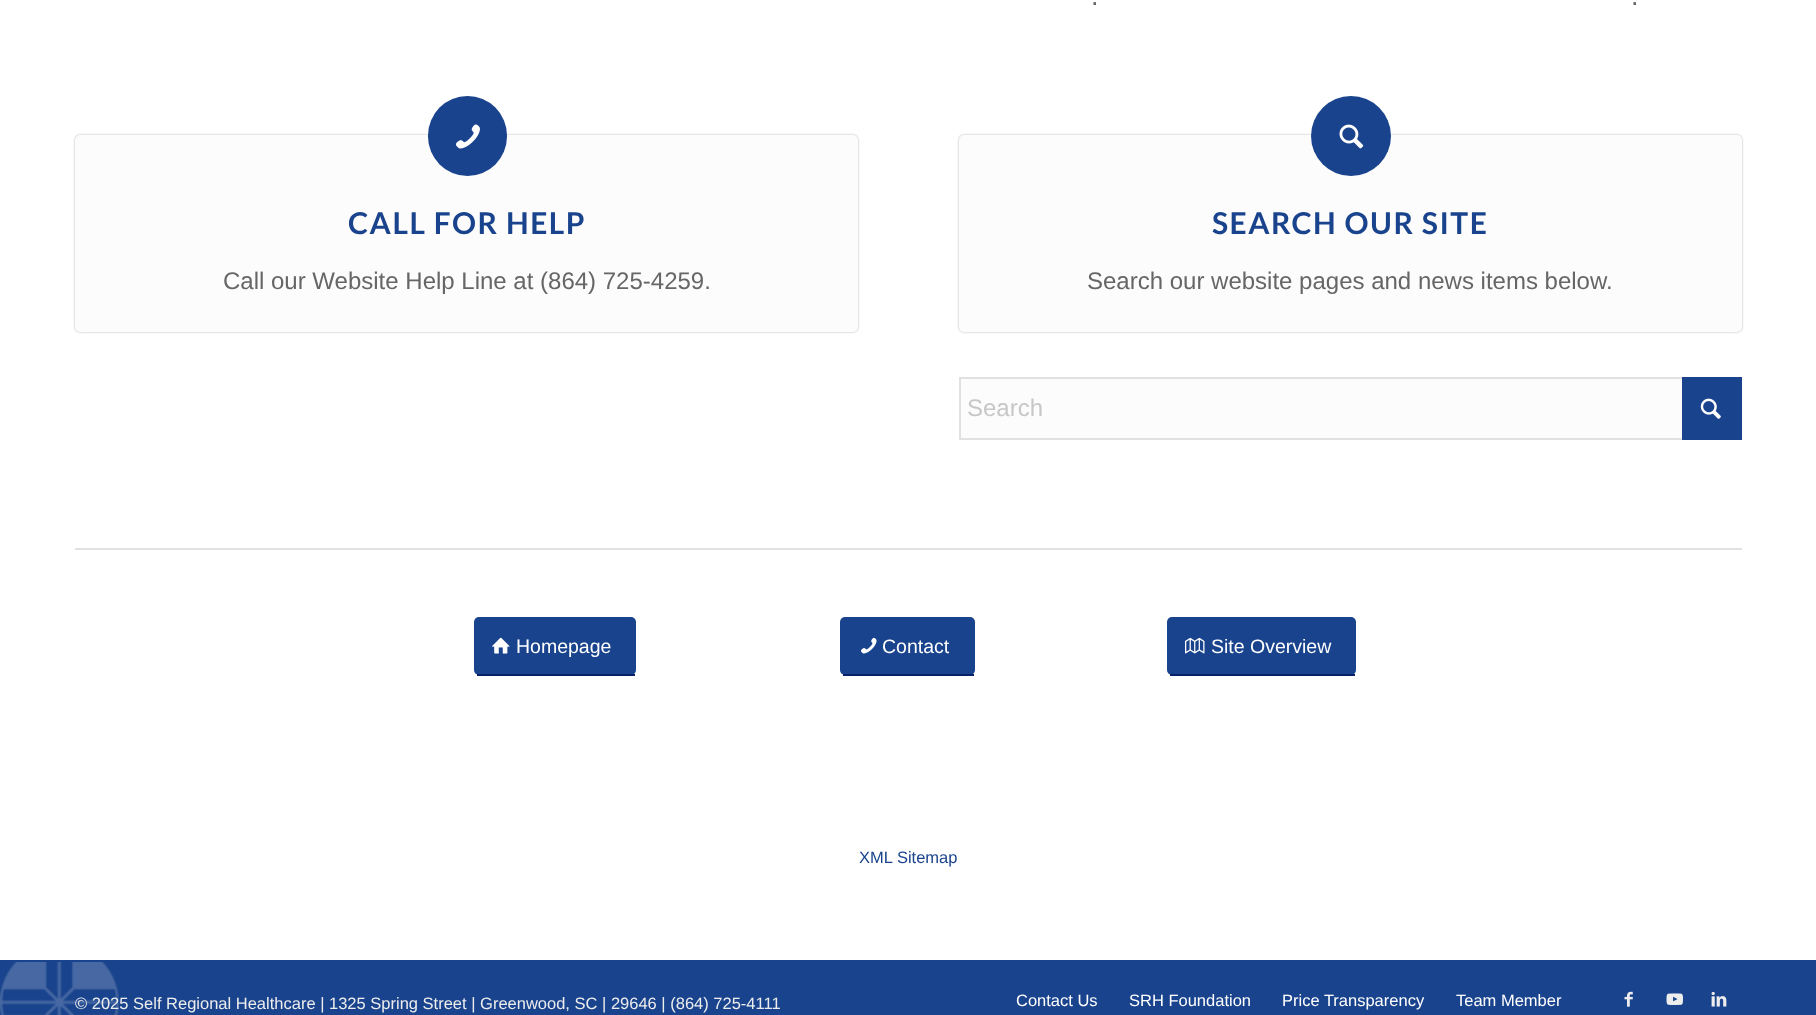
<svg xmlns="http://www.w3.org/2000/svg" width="1816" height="1015">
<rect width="100%" height="100%" fill="#fff"/>
<text x="1091" y="5" style="font-family:Liberation Sans;font-size:27px;fill:#666">.</text>
<text x="1631" y="5" style="font-family:Liberation Sans;font-size:27px;fill:#666">.</text>
<rect x="75" y="135" width="783" height="197" rx="5" fill="#0000004d" filter="blur(1px)"/>
<rect x="75" y="135" width="783" height="197" rx="5" fill="#fcfcfc"/>
<rect x="428" y="96" width="79" height="80" rx="39.5" fill="#19438c"/>
<image x="456" y="124" width="24" height="25" href="media/1.png"/>
<text x="348" y="234" style="font-family:Lato;font-size:30px;font-weight:bold;letter-spacing:1.5px;fill:#19438c">CALL FOR HELP</text>
<text x="223" y="289" style="font-family:Liberation Sans;font-size:24px;fill:#666">Call our Website Help Line at (864) 725-4259.</text>
<rect x="959" y="135" width="783" height="197" rx="5" fill="#0000004d" filter="blur(1px)"/>
<rect x="959" y="135" width="783" height="197" rx="5" fill="#fcfcfc"/>
<circle cx="1351" cy="136" r="40" fill="#19438c"/>
<image x="1339" y="124" width="25" height="25" href="media/2.png"/>
<text x="1212" y="234" style="font-family:Lato;font-size:30px;font-weight:bold;letter-spacing:1.5px;fill:#19438c">SEARCH OUR SITE</text>
<text x="1087" y="289" style="font-family:Liberation Sans;font-size:24px;fill:#666">Search our website pages and news items below.</text>
<rect x="961" y="379" width="721" height="59" fill="#fcfcfc"/>
<rect x="960" y="378" width="781" height="61" fill="none" stroke="#e1e1e1" stroke-width="2"/>
<text x="967" y="416" style="font-family:Liberation Sans;font-size:24px;fill:#c7c7c7">Search</text>
<rect x="1682" y="377" width="60" height="63" fill="#19438c"/>
<image x="1700" y="398" width="21" height="21" href="media/3.png"/>
<rect x="75" y="548" width="1667" height="2" fill="#e1e1e1"/>
<rect x="474" y="617" width="162" height="58" rx="5" fill="#19438c"/>
<rect x="477" y="674" width="158" height="2" fill="#07216a"/>
<image x="492" y="637" width="18" height="17" href="media/4.png"/>
<text x="516" y="653" style="font-family:Liberation Sans;font-size:19.5px;fill:#fff">Homepage</text>
<rect x="840" y="617" width="135" height="58" rx="5" fill="#19438c"/>
<rect x="843" y="674" width="131" height="2" fill="#07216a"/>
<image x="861" y="637" width="16" height="17" href="media/5.png"/>
<text x="882" y="653" style="font-family:Liberation Sans;font-size:19.5px;fill:#fff">Contact</text>
<rect x="1167" y="617" width="189" height="58" rx="5" fill="#19438c"/>
<rect x="1170" y="674" width="185" height="2" fill="#07216a"/>
<image x="1185" y="637" width="20" height="17" href="media/6.png"/>
<text x="1211" y="653" style="font-family:Liberation Sans;font-size:19.5px;fill:#fff">Site Overview</text>
<text x="859" y="863" style="font-family:Liberation Sans;font-size:16.5px;fill:#19438c">XML Sitemap</text>
<rect y="960" width="1816" height="55" fill="#19438c"/>
<image x="0" y="962" width="119" height="53" href="media/7.png"/>
<text x="75" y="1009" style="font-family:Liberation Sans;font-size:16.5px;fill:#ededed">© 2025 Self Regional Healthcare | 1325 Spring Street | Greenwood, SC | 29646 | (864) 725-4111</text>
<text x="1016" y="1006" style="font-family:Liberation Sans;font-size:16.5px;fill:#fff">Contact Us</text>
<text x="1129" y="1006" style="font-family:Liberation Sans;font-size:16.5px;fill:#fff">SRH Foundation</text>
<text x="1282" y="1006" style="font-family:Liberation Sans;font-size:16.5px;fill:#fff">Price Transparency</text>
<text x="1456" y="1006" style="font-family:Liberation Sans;font-size:16.5px;fill:#fff">Team Member</text>
<image x="1624" y="991" width="9" height="16" href="media/8.png"/>
<image x="1666" y="993" width="17" height="12" href="media/9.png"/>
<image x="1711" y="991" width="16" height="16" href="media/10.png"/>
</svg>
